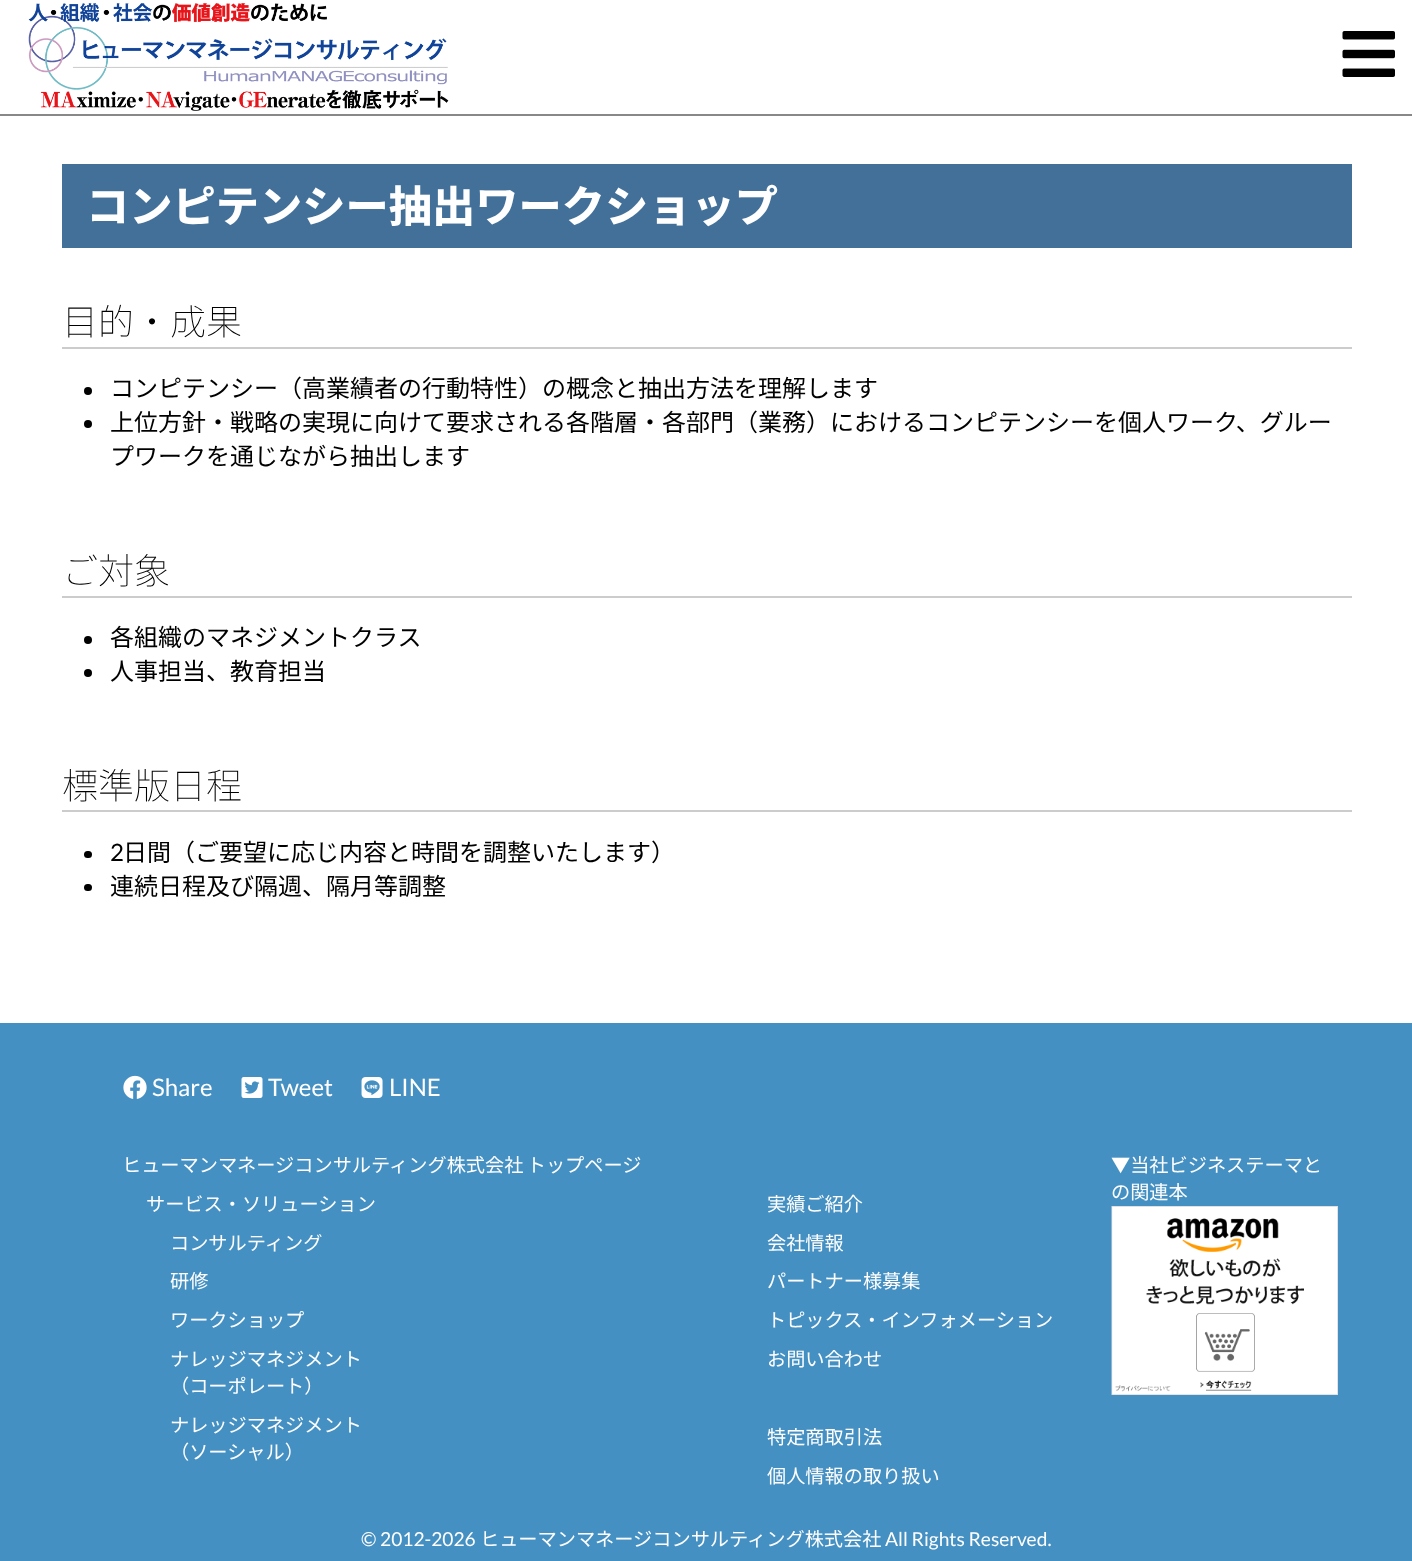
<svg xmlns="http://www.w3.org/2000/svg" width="1412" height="1561">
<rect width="100%" height="100%" fill="#fff"/>
<rect y="114" width="1412" height="2" fill="#888"/>
<image x="28" y="3" width="421" height="108" href="media/1.png"/>
<image x="1342" y="31" width="53" height="46" href="media/2.png"/>
<rect x="62" y="164" width="1290" height="84" fill="#437099"/>
<text x="86" y="222" style="font-family:Noto Sans JP;font-size:43.25px;font-weight:800;fill:#fff">コンピテンシー抽出ワークショップ</text>
<rect x="62" y="347" width="1290" height="2" fill="#ccc"/>
<text x="62" y="335" style="font-family:Noto Sans JP;font-size:36px;font-weight:100;fill:#000">目的・成果</text>
<circle cx="88" cy="391" r="4" fill="#000"/>
<text x="110" y="397" style="font-family:Noto Sans JP;font-size:24px;fill:#000">コンピテンシー（高業績者の行動特性）の概念と抽出方法を理解します</text>
<circle cx="88" cy="424" r="4" fill="#000"/>
<text x="110" y="431" style="font-family:Noto Sans JP;font-size:24px;fill:#000">上位方針・戦略の実現に向けて要求される各階層・各部門（業務）におけるコンピテンシーを個人ワーク、グルー</text>
<text x="110" y="465" style="font-family:Noto Sans JP;font-size:24px;fill:#000">プワークを通じながら抽出します</text>
<rect x="62" y="596" width="1290" height="2" fill="#ccc"/>
<text x="62" y="584" style="font-family:Noto Sans JP;font-size:36px;font-weight:100;fill:#000">ご対象</text>
<circle cx="88" cy="640" r="4" fill="#000"/>
<text x="110" y="646" style="font-family:Noto Sans JP;font-size:24px;fill:#000">各組織のマネジメントクラス</text>
<circle cx="88" cy="673" r="4" fill="#000"/>
<text x="110" y="680" style="font-family:Noto Sans JP;font-size:24px;fill:#000">人事担当、教育担当</text>
<rect x="62" y="810" width="1290" height="2" fill="#ccc"/>
<text x="62" y="799" style="font-family:Noto Sans JP;font-size:36px;font-weight:100;fill:#000">標準版日程</text>
<rect x="84" y="851" width="8" height="7" rx="3.5" fill="#000"/>
<text x="110" y="861" style="font-family:Lato;font-size:24px;fill:#000">2</text>
<text x="123" y="861" style="font-family:Noto Sans JP;font-size:24px;fill:#000">日間（ご要望に応じ内容と時間を調整いたします）</text>
<rect x="84" y="884" width="8" height="7" rx="3.5" fill="#000"/>
<text x="110" y="895" style="font-family:Noto Sans JP;font-size:24px;fill:#000">連続日程及び隔週、隔月等調整</text>
<rect y="1023" width="1412" height="538" fill="#4590c2"/>
<image x="123" y="1075" width="24" height="24" href="media/3.png"/>
<text x="152" y="1096" style="font-family:Lato;font-size:24px;fill:#fff">Share</text>
<image x="241" y="1077" width="22" height="21" href="media/4.png"/>
<text x="268" y="1096" style="font-family:Lato;font-size:24px;fill:#fff">Tweet</text>
<image x="361" y="1077" width="22" height="21" href="media/5.png"/>
<text x="389" y="1096" style="font-family:Lato;font-size:24px;fill:#fff">LINE</text>
<text x="122" y="1172" word-spacing="-1" style="font-family:Noto Sans JP;font-size:19.2px;fill:#fff">ヒューマンマネージコンサルティング株式会社 トップページ</text>
<text x="146" y="1211" style="font-family:Noto Sans JP;font-size:19.2px;fill:#fff">サービス・ソリューション</text>
<text x="170" y="1250" style="font-family:Noto Sans JP;font-size:19.2px;fill:#fff">コンサルティング</text>
<text x="170" y="1288" style="font-family:Noto Sans JP;font-size:19.2px;fill:#fff">研修</text>
<text x="170" y="1327" style="font-family:Noto Sans JP;font-size:19.2px;fill:#fff">ワークショップ</text>
<text x="170" y="1366" style="font-family:Noto Sans JP;font-size:19.2px;fill:#fff">ナレッジマネジメント</text>
<text x="170" y="1393" style="font-family:Noto Sans JP;font-size:19.2px;fill:#fff">（コーポレート）</text>
<text x="170" y="1432" style="font-family:Noto Sans JP;font-size:19.2px;fill:#fff">ナレッジマネジメント</text>
<text x="170" y="1459" style="font-family:Noto Sans JP;font-size:19.2px;fill:#fff">（ソーシャル）</text>
<text x="1111" y="1172" style="font-family:Noto Sans JP;font-size:19.2px;fill:#fff">▼当社ビジネステーマと</text>
<text x="1111" y="1199" style="font-family:Noto Sans JP;font-size:19.2px;fill:#fff">の関連本</text>
<image x="1111" y="1206" width="227" height="189" href="media/6.png"/>
<text x="767" y="1211" style="font-family:Noto Sans JP;font-size:19.2px;fill:#fff">実績ご紹介</text>
<text x="767" y="1250" style="font-family:Noto Sans JP;font-size:19.2px;fill:#fff">会社情報</text>
<text x="767" y="1288" style="font-family:Noto Sans JP;font-size:19.2px;fill:#fff">パートナー様募集</text>
<text x="767" y="1327" style="font-family:Noto Sans JP;font-size:19.2px;fill:#fff">トピックス・インフォメーション</text>
<text x="767" y="1366" style="font-family:Noto Sans JP;font-size:19.2px;fill:#fff">お問い合わせ</text>
<text x="767" y="1444" style="font-family:Noto Sans JP;font-size:19.2px;fill:#fff">特定商取引法</text>
<text x="767" y="1483" style="font-family:Noto Sans JP;font-size:19.2px;fill:#fff">個人情報の取り扱い</text>
<text x="361" y="1546" style="font-family:Lato;font-size:19.2px;fill:#fff">© 2012-2026</text>
<text x="480" y="1546" style="font-family:Noto Sans JP;font-size:19.2px;fill:#fff">ヒューマンマネージコンサルティング株式会社</text>
<text x="885" y="1546" style="font-family:Lato;font-size:19.2px;fill:#fff">All Rights Reserved.</text>
</svg>
